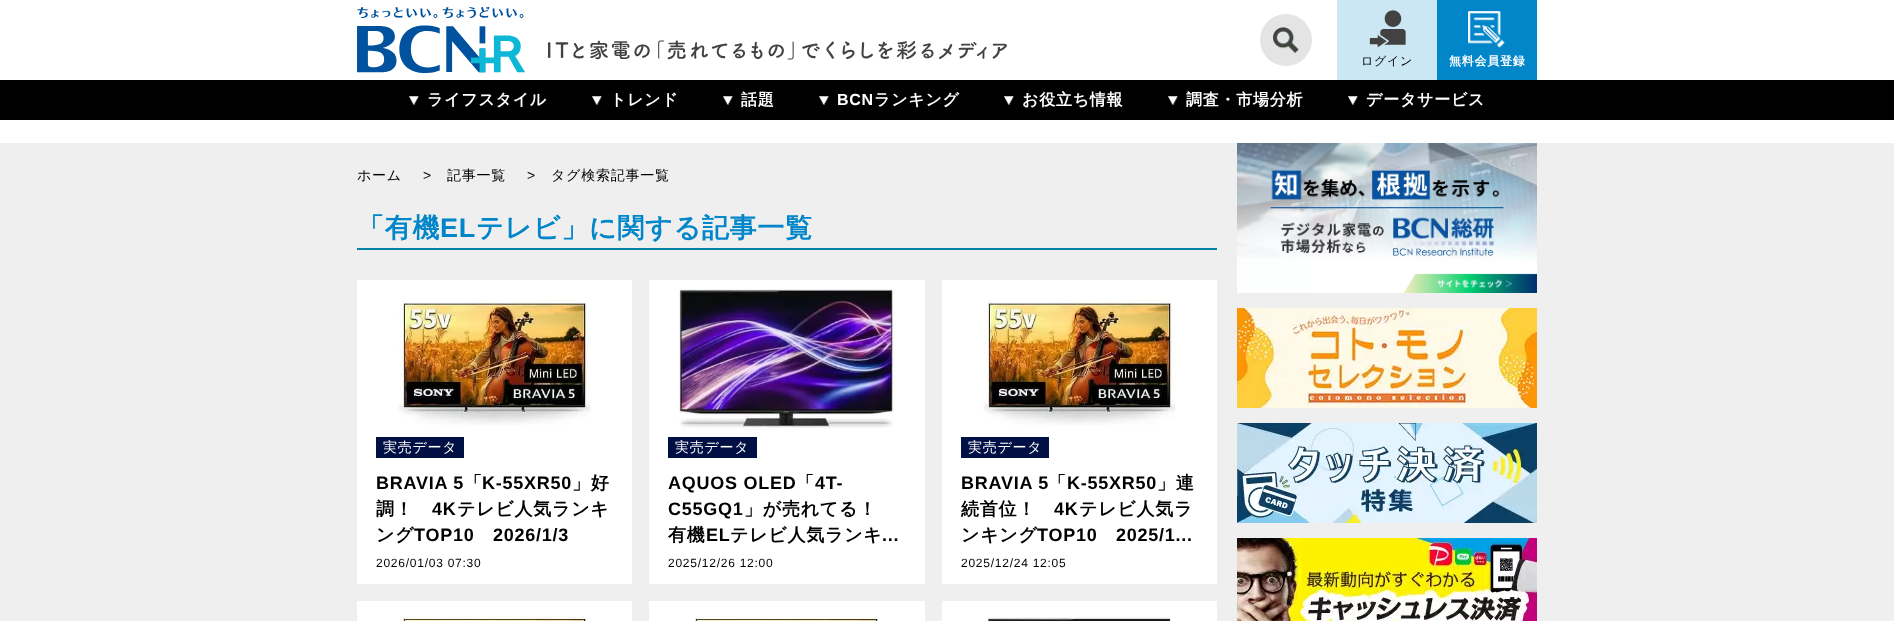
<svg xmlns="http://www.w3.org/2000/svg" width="1894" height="621">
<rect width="100%" height="100%" fill="#fff"/>
<image x="357" y="7" width="650" height="66" href="media/1.png"/>
<circle cx="1286" cy="40" r="26" fill="#e4e4e4"/>
<image x="1273" y="27" width="26" height="26" href="media/2.png"/>
<rect x="1337" width="100" height="80" fill="#cce7f4"/>
<image x="1368" y="10" width="38" height="40" href="media/3.png"/>
<text x="1361" y="65" style="font-family:WenQuanYi Zen Hei;font-size:12px;font-weight:500;letter-spacing:0.75px;fill:#000">ログイン</text>
<rect x="1437" width="100" height="80" fill="#0086c9"/>
<image x="1468" y="11" width="37" height="37" href="media/4.png"/>
<text x="1449" y="65" style="font-family:WenQuanYi Zen Hei;font-size:12px;font-weight:bold;letter-spacing:0.75px;fill:#fff">無料会員登録</text>
<rect y="80" width="1894" height="40" fill="#000"/>
<image x="409" y="96" width="10" height="9" href="media/5.png"/>
<text x="427" y="105" style="font-family:WenQuanYi Zen Hei;font-size:16px;font-weight:bold;letter-spacing:0.75px;fill:#fff">ライフスタイル</text>
<image x="592" y="96" width="10" height="9" href="media/5.png"/>
<text x="610" y="105" style="font-family:WenQuanYi Zen Hei;font-size:16px;font-weight:bold;letter-spacing:0.75px;fill:#fff">トレンド</text>
<image x="723" y="96" width="10" height="9" href="media/5.png"/>
<text x="741" y="105" style="font-family:WenQuanYi Zen Hei;font-size:16px;font-weight:bold;letter-spacing:0.75px;fill:#fff">話題</text>
<image x="819" y="96" width="10" height="9" href="media/6.png"/>
<text x="837" y="105" style="font-family:Liberation Sans;font-size:16px;font-weight:bold;letter-spacing:0.75px;fill:#fff">BCN</text>
<text x="874" y="105" style="font-family:WenQuanYi Zen Hei;font-size:16px;font-weight:bold;letter-spacing:0.75px;fill:#fff">ランキング</text>
<image x="1004" y="96" width="10" height="9" href="media/6.png"/>
<text x="1022" y="105" style="font-family:WenQuanYi Zen Hei;font-size:16px;font-weight:bold;letter-spacing:0.75px;fill:#fff">お役立ち情報</text>
<image x="1168" y="96" width="10" height="9" href="media/5.png"/>
<text x="1186" y="105" style="font-family:WenQuanYi Zen Hei;font-size:16px;font-weight:bold;letter-spacing:0.75px;fill:#fff">調査・市場分析</text>
<image x="1348" y="96" width="10" height="9" href="media/6.png"/>
<text x="1366" y="105" style="font-family:WenQuanYi Zen Hei;font-size:16px;font-weight:bold;letter-spacing:0.75px;fill:#fff">データサービス</text>
<rect y="143" width="1894" height="478" fill="#efefef"/>
<text x="357" y="180" style="font-family:WenQuanYi Zen Hei;font-size:14px;font-weight:500;letter-spacing:0.75px;fill:#000">ホーム</text>
<text x="423" y="180" style="font-family:Liberation Sans;font-size:14px;letter-spacing:0.75px;fill:#000">&gt;</text>
<text x="447" y="180" style="font-family:WenQuanYi Zen Hei;font-size:14px;font-weight:500;letter-spacing:0.75px;fill:#000">記事一覧</text>
<text x="527" y="180" style="font-family:Liberation Sans;font-size:14px;letter-spacing:0.75px;fill:#000">&gt;</text>
<text x="551" y="180" style="font-family:WenQuanYi Zen Hei;font-size:14px;font-weight:500;letter-spacing:0.75px;fill:#000">タグ検索記事一覧</text>
<rect x="357" y="248" width="860" height="2" fill="#0082a0"/>
<text x="357" y="237" style="font-family:WenQuanYi Zen Hei;font-size:27px;font-weight:bold;letter-spacing:0.75px;fill:#0086c9">「有機</text>
<text x="440" y="237" style="font-family:Liberation Sans;font-size:27px;font-weight:bold;letter-spacing:0.75px;fill:#0086c9">EL</text>
<text x="476" y="237" style="font-family:WenQuanYi Zen Hei;font-size:27px;font-weight:bold;letter-spacing:0.75px;fill:#0086c9">テレビ」に関する記事一覧</text>
<rect x="357" y="280" width="275" height="304" fill="#fff"/>
<image x="398" y="300" width="193" height="125" href="media/7.png"/>
<rect x="376" y="437" width="88" height="21" fill="#001045"/>
<text x="383" y="452" style="font-family:WenQuanYi Zen Hei;font-size:14px;font-weight:500;letter-spacing:0.75px;fill:#fff">実売データ</text>
<text x="376" y="489" style="font-family:Liberation Sans;font-size:18px;font-weight:bold;letter-spacing:0.75px;fill:#000">BRAVIA 5</text>
<text x="464" y="489" style="font-family:WenQuanYi Zen Hei;font-size:18px;font-weight:bold;letter-spacing:0.75px;fill:#000">「</text>
<text x="482" y="489" style="font-family:Liberation Sans;font-size:18px;font-weight:bold;letter-spacing:0.75px;fill:#000">K-55XR50</text>
<text x="572" y="489" style="font-family:WenQuanYi Zen Hei;font-size:18px;font-weight:bold;letter-spacing:0.75px;fill:#000">」好</text>
<text x="376" y="515" style="font-family:WenQuanYi Zen Hei;font-size:18px;font-weight:bold;letter-spacing:0.75px;fill:#000">調！</text>
<text x="432" y="515" style="font-family:Liberation Sans;font-size:18px;font-weight:bold;letter-spacing:0.75px;fill:#000">4K</text>
<text x="457" y="515" style="font-family:WenQuanYi Zen Hei;font-size:18px;font-weight:bold;letter-spacing:0.75px;fill:#000">テレビ人気ランキ</text>
<text x="376" y="541" style="font-family:WenQuanYi Zen Hei;font-size:18px;font-weight:bold;letter-spacing:0.75px;fill:#000">ング</text>
<text x="414" y="541" style="font-family:Liberation Sans;font-size:18px;font-weight:bold;letter-spacing:0.75px;fill:#000">TOP10</text>
<text x="493" y="541" style="font-family:Liberation Sans;font-size:18px;font-weight:bold;letter-spacing:0.75px;fill:#000">2026/1/3</text>
<text x="376" y="567" style="font-family:Liberation Sans;font-size:12px;letter-spacing:0.75px;fill:#000">2026/01/03 07:30</text>
<rect x="649" y="280" width="276" height="304" fill="#fff"/>
<image x="679" y="288" width="216" height="141" href="media/8.png"/>
<rect x="668" y="437" width="89" height="21" fill="#001045"/>
<text x="675" y="452" style="font-family:WenQuanYi Zen Hei;font-size:14px;font-weight:500;letter-spacing:0.75px;fill:#fff">実売データ</text>
<text x="668" y="489" style="font-family:Liberation Sans;font-size:18px;font-weight:bold;letter-spacing:0.75px;fill:#000">AQUOS OLED</text>
<text x="796" y="489" style="font-family:WenQuanYi Zen Hei;font-size:18px;font-weight:bold;letter-spacing:0.75px;fill:#000">「</text>
<text x="815" y="489" style="font-family:Liberation Sans;font-size:18px;font-weight:bold;letter-spacing:0.75px;fill:#000">4T-</text>
<text x="668" y="515" style="font-family:Liberation Sans;font-size:18px;font-weight:bold;letter-spacing:0.75px;fill:#000">C55GQ1</text>
<text x="744" y="515" style="font-family:WenQuanYi Zen Hei;font-size:18px;font-weight:bold;letter-spacing:0.75px;fill:#000">」が売れてる！</text>
<text x="668" y="541" style="font-family:WenQuanYi Zen Hei;font-size:18px;font-weight:bold;letter-spacing:0.75px;fill:#000">有機</text>
<text x="706" y="541" style="font-family:Liberation Sans;font-size:18px;font-weight:bold;letter-spacing:0.75px;fill:#000">EL</text>
<text x="730" y="541" style="font-family:WenQuanYi Zen Hei;font-size:18px;font-weight:bold;letter-spacing:0.75px;fill:#000">テレビ人気ランキ</text>
<text x="882" y="541" style="font-family:Liberation Sans;font-size:18px;font-weight:bold;letter-spacing:0.75px;fill:#000">...</text>
<text x="668" y="567" style="font-family:Liberation Sans;font-size:12px;letter-spacing:0.75px;fill:#000">2025/12/26 12:00</text>
<rect x="942" y="280" width="275" height="304" fill="#fff"/>
<image x="983" y="300" width="193" height="125" href="media/9.png"/>
<rect x="961" y="437" width="88" height="21" fill="#001045"/>
<text x="968" y="452" style="font-family:WenQuanYi Zen Hei;font-size:14px;font-weight:500;letter-spacing:0.75px;fill:#fff">実売データ</text>
<text x="961" y="489" style="font-family:Liberation Sans;font-size:18px;font-weight:bold;letter-spacing:0.75px;fill:#000">BRAVIA 5</text>
<text x="1048" y="489" style="font-family:WenQuanYi Zen Hei;font-size:18px;font-weight:bold;letter-spacing:0.75px;fill:#000">「</text>
<text x="1067" y="489" style="font-family:Liberation Sans;font-size:18px;font-weight:bold;letter-spacing:0.75px;fill:#000">K-55XR50</text>
<text x="1157" y="489" style="font-family:WenQuanYi Zen Hei;font-size:18px;font-weight:bold;letter-spacing:0.75px;fill:#000">」連</text>
<text x="961" y="515" style="font-family:WenQuanYi Zen Hei;font-size:18px;font-weight:bold;letter-spacing:0.75px;fill:#000">続首位！</text>
<text x="1054" y="515" style="font-family:Liberation Sans;font-size:18px;font-weight:bold;letter-spacing:0.75px;fill:#000">4K</text>
<text x="1079" y="515" style="font-family:WenQuanYi Zen Hei;font-size:18px;font-weight:bold;letter-spacing:0.75px;fill:#000">テレビ人気ラ</text>
<text x="961" y="541" style="font-family:WenQuanYi Zen Hei;font-size:18px;font-weight:bold;letter-spacing:0.75px;fill:#000">ンキング</text>
<text x="1037" y="541" style="font-family:Liberation Sans;font-size:18px;font-weight:bold;letter-spacing:0.75px;fill:#000">TOP10</text>
<text x="1116" y="541" style="font-family:Liberation Sans;font-size:18px;font-weight:bold;letter-spacing:0.75px;fill:#000">2025/1...</text>
<text x="961" y="567" style="font-family:Liberation Sans;font-size:12px;letter-spacing:0.75px;fill:#000">2025/12/24 12:05</text>
<rect x="357" y="601" width="275" height="20" fill="#fff"/>
<image x="403" y="616" width="185" height="5" href="media/10.png"/>
<rect x="649" y="601" width="276" height="20" fill="#fff"/>
<image x="695" y="616" width="184" height="5" href="media/11.png"/>
<rect x="942" y="601" width="275" height="20" fill="#fff"/>
<image x="988" y="617" width="183" height="4" href="media/12.png"/>
<image x="1237" y="143" width="300" height="150" href="media/13.png"/>
<image x="1237" y="308" width="300" height="100" href="media/14.png"/>
<image x="1237" y="423" width="300" height="100" href="media/15.png"/>
<image x="1237" y="538" width="300" height="83" href="media/16.png"/>
</svg>
